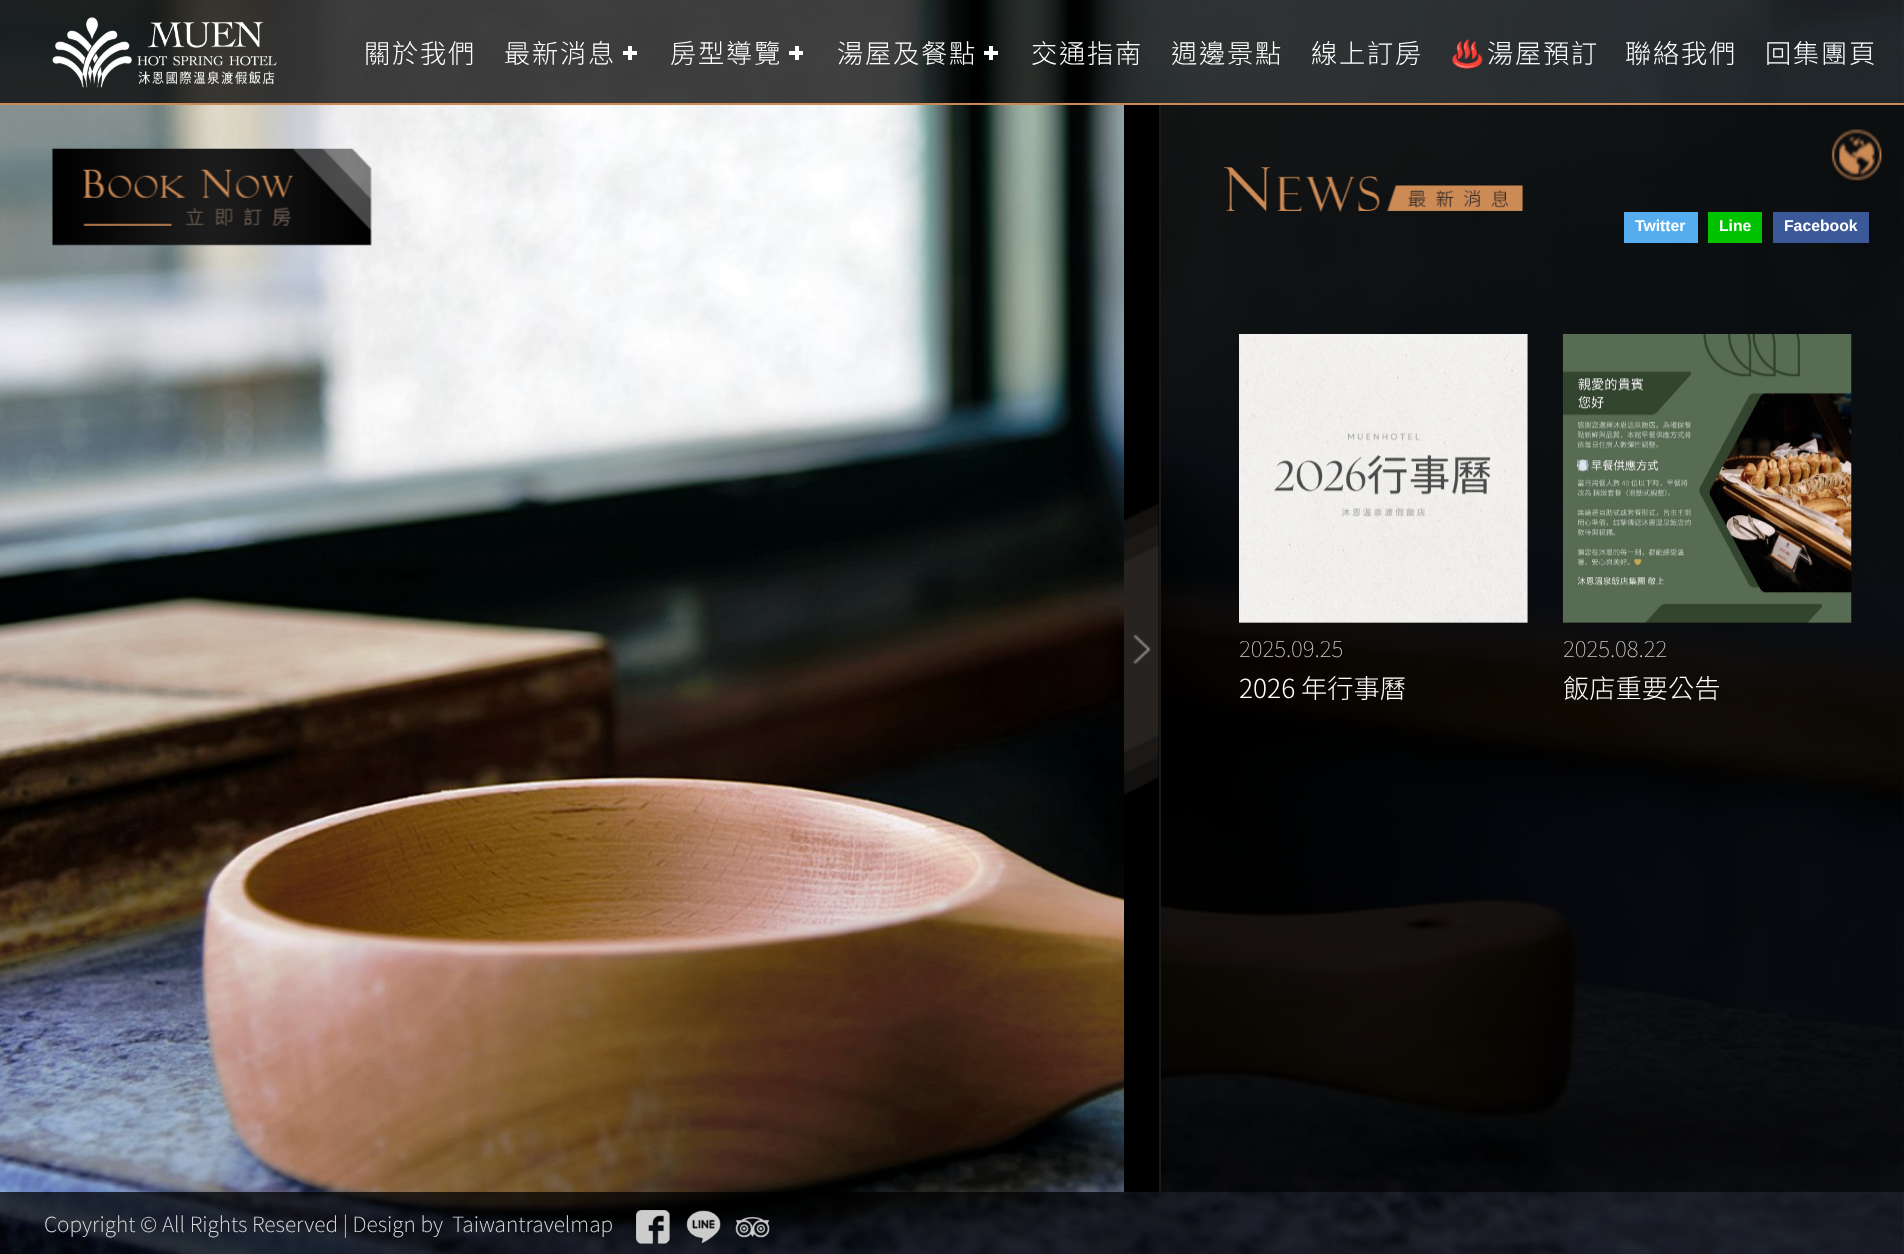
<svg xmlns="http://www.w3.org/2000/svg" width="1904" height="1254">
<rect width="100%" height="100%" fill="#fff"/>
<image x="0" y="0" width="1904" height="1254" href="media/3.png"/>
<rect width="1904" height="103" fill="#000000bf"/>
<rect y="103" width="1904" height="2" fill="#cc8a55"/>
<image x="52" y="17" width="225" height="71" href="media/1.png"/>
<text x="364" y="63" style="font-family:Noto Sans TC;font-size:26.25px;font-weight:300;letter-spacing:1.75px;fill:#fff">關於我們</text>
<text x="504" y="63" style="font-family:Noto Sans TC;font-size:26.25px;font-weight:300;letter-spacing:1.75px;fill:#fff">最新消息</text>
<rect x="628" y="46" width="4" height="14" fill="#fff"/>
<rect x="623" y="51" width="14" height="4" fill="#fff"/>
<text x="670" y="63" style="font-family:Noto Sans TC;font-size:26.25px;font-weight:300;letter-spacing:1.75px;fill:#fff">房型導覽</text>
<rect x="795" y="46" width="4" height="14" fill="#fff"/>
<rect x="789" y="51" width="14" height="4" fill="#fff"/>
<text x="837" y="63" style="font-family:Noto Sans TC;font-size:26.25px;font-weight:300;letter-spacing:1.75px;fill:#fff">湯屋及餐點</text>
<rect x="989" y="46" width="4" height="14" fill="#fff"/>
<rect x="984" y="51" width="14" height="4" fill="#fff"/>
<text x="1031" y="63" style="font-family:Noto Sans TC;font-size:26.25px;font-weight:300;letter-spacing:1.75px;fill:#fff">交通指南</text>
<text x="1171" y="63" style="font-family:Noto Sans TC;font-size:26.25px;font-weight:300;letter-spacing:1.75px;fill:#fff">週邊景點</text>
<text x="1311" y="63" style="font-family:Noto Sans TC;font-size:26.25px;font-weight:300;letter-spacing:1.75px;fill:#fff">線上訂房</text>
<text x="1451" y="63" style="font-family:Noto Color Emoji;font-size:26.25px;letter-spacing:1.75px;fill:#fff">♨️</text>
<text x="1487" y="63" style="font-family:Noto Sans TC;font-size:26.25px;font-weight:300;letter-spacing:1.75px;fill:#fff">湯屋預訂</text>
<text x="1625" y="63" style="font-family:Noto Sans TC;font-size:26.25px;font-weight:300;letter-spacing:1.75px;fill:#fff">聯絡我們</text>
<text x="1765" y="63" style="font-family:Noto Sans TC;font-size:26.25px;font-weight:300;letter-spacing:1.75px;fill:#fff">回集團頁</text>
<rect x="1161" y="105" width="743" height="1087" fill="#000000e6"/>
<image x="1831" y="129" width="51" height="52" href="media/2.png"/>
<image x="52" y="148" width="320" height="98" href="media/4.png"/>
<rect x="1124" y="105" width="35" height="1087" fill="#000"/>
<image x="1124" y="503" width="35" height="292" href="media/5.png"/>
<rect x="1159" y="105" width="2" height="1087" fill="#1a1a1a"/>
<image x="1223" y="167" width="300" height="45" href="media/6.png"/>
<rect x="1624" y="212" width="74" height="31" fill="#55acee"/>
<text x="1635" y="231" style="font-family:Liberation Sans;font-size:15.75px;font-weight:bold;fill:#fff">Twitter</text>
<rect x="1708" y="212" width="54" height="31" fill="#00c300"/>
<text x="1719" y="231" style="font-family:Liberation Sans;font-size:15.75px;font-weight:bold;fill:#fff">Line</text>
<rect x="1773" y="212" width="96" height="31" fill="#3b5998"/>
<text x="1784" y="231" style="font-family:Liberation Sans;font-size:15.75px;font-weight:bold;fill:#fff">Facebook</text>
<image x="1239" y="334" width="289" height="289" href="media/7.png"/>
<text x="1239" y="657" style="font-family:Noto Sans TC;font-size:22.5px;font-weight:100;fill:#ccc">2025.09.25</text>
<text x="1239" y="698" style="font-family:Noto Sans TC;font-size:26.25px;font-weight:300;fill:#fff">2026 年行事曆</text>
<image x="1562" y="334" width="290" height="289" href="media/8.png"/>
<text x="1563" y="657" style="font-family:Noto Sans TC;font-size:22.5px;font-weight:100;fill:#ccc">2025.08.22</text>
<text x="1563" y="698" style="font-family:Noto Sans TC;font-size:26.25px;font-weight:300;fill:#fff">飯店重要公告</text>
<rect y="1192" width="1904" height="62" fill="#000000bf"/>
<text x="44" y="1232" style="font-family:Noto Sans TC;font-size:21px;font-weight:200;fill:#ddd">Copyright © All Rights Reserved | Design by</text>
<text x="452" y="1232" style="font-family:Noto Sans TC;font-size:21px;font-weight:200;fill:#ddd">Taiwantravelmap</text>
<image x="636" y="1210" width="34" height="34" href="media/9.png"/>
<image x="686" y="1210" width="35" height="33" href="media/10.png"/>
<image x="735" y="1217" width="35" height="21" href="media/11.png"/>
</svg>
